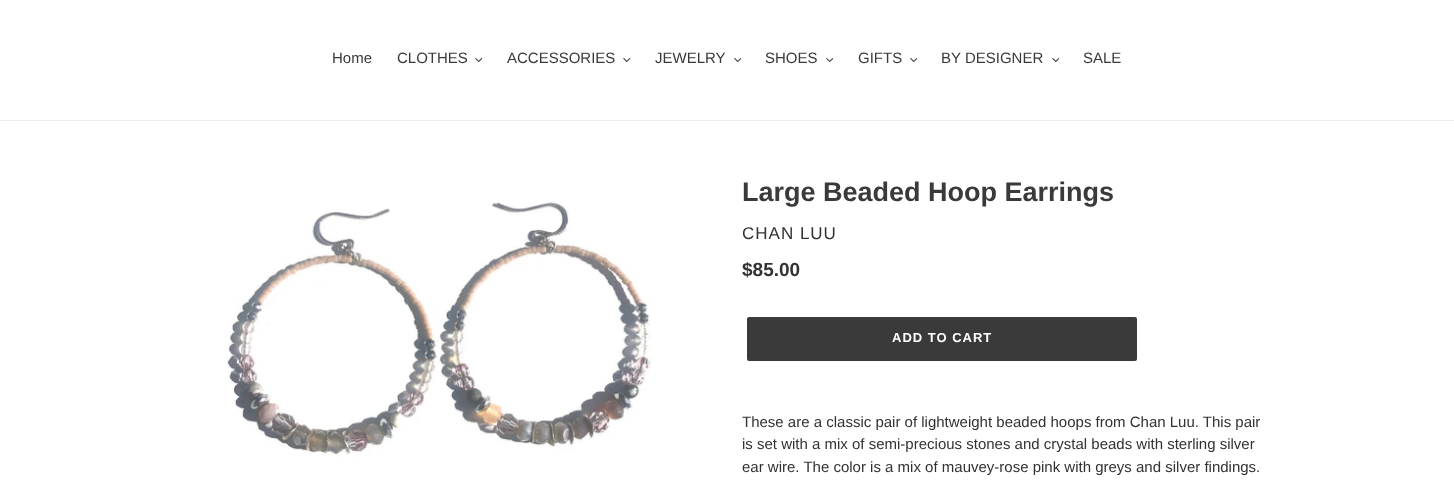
<svg xmlns="http://www.w3.org/2000/svg" width="1454" height="492">
<rect width="100%" height="100%" fill="#fff"/>
<rect y="120" width="1454" height="1" fill="#ebebeb"/>
<text x="332" y="63" style="font-family:Liberation Sans;font-size:15px;fill:#3a3a3a">Home</text>
<text x="397" y="63" style="font-family:Liberation Sans;font-size:15px;fill:#3a3a3a">CLOTHES</text>
<image x="475" y="58" width="8" height="4" href="media/1.png"/>
<text x="507" y="63" style="font-family:Liberation Sans;font-size:15px;fill:#3a3a3a">ACCESSORIES</text>
<image x="623" y="58" width="8" height="4" href="media/1.png"/>
<text x="655" y="63" style="font-family:Liberation Sans;font-size:15px;fill:#3a3a3a">JEWELRY</text>
<image x="734" y="58" width="7" height="4" href="media/2.png"/>
<text x="765" y="63" style="font-family:Liberation Sans;font-size:15px;fill:#3a3a3a">SHOES</text>
<image x="826" y="58" width="7" height="4" href="media/2.png"/>
<text x="858" y="63" style="font-family:Liberation Sans;font-size:15px;fill:#3a3a3a">GIFTS</text>
<image x="910" y="58" width="7" height="4" href="media/2.png"/>
<text x="941" y="63" style="font-family:Liberation Sans;font-size:15px;fill:#3a3a3a">BY DESIGNER</text>
<image x="1052" y="58" width="7" height="4" href="media/2.png"/>
<text x="1083" y="63" style="font-family:Liberation Sans;font-size:15px;fill:#3a3a3a">SALE</text>
<image x="225" y="200" width="427" height="259" href="media/3.png"/>
<text x="742" y="201" style="font-family:Liberation Sans;font-size:27px;font-weight:bold;fill:#3a3a3a">Large Beaded Hoop Earrings</text>
<text x="742" y="239" style="font-family:Liberation Sans;font-size:17px;letter-spacing:1px;fill:#333232">CHAN LUU</text>
<text x="742" y="276" style="font-family:Liberation Sans;font-size:19px;font-weight:bold;fill:#333232">$85.00</text>
<rect x="747" y="317" width="390" height="44" rx="2" fill="#3a3a3a"/>
<text x="892" y="342" style="font-family:Liberation Sans;font-size:13px;font-weight:bold;letter-spacing:1px;fill:#fff">ADD TO CART</text>
<text x="742" y="427" style="font-family:Liberation Sans;font-size:15px;fill:#333232">These are a classic pair of lightweight beaded hoops from Chan Luu. This pair</text>
<text x="742" y="449" style="font-family:Liberation Sans;font-size:15px;fill:#333232">is set with a mix of semi-precious stones and crystal beads with sterling silver</text>
<text x="742" y="472" style="font-family:Liberation Sans;font-size:15px;fill:#333232">ear wire. The color is a mix of mauvey-rose pink with greys and silver findings.</text>
</svg>
